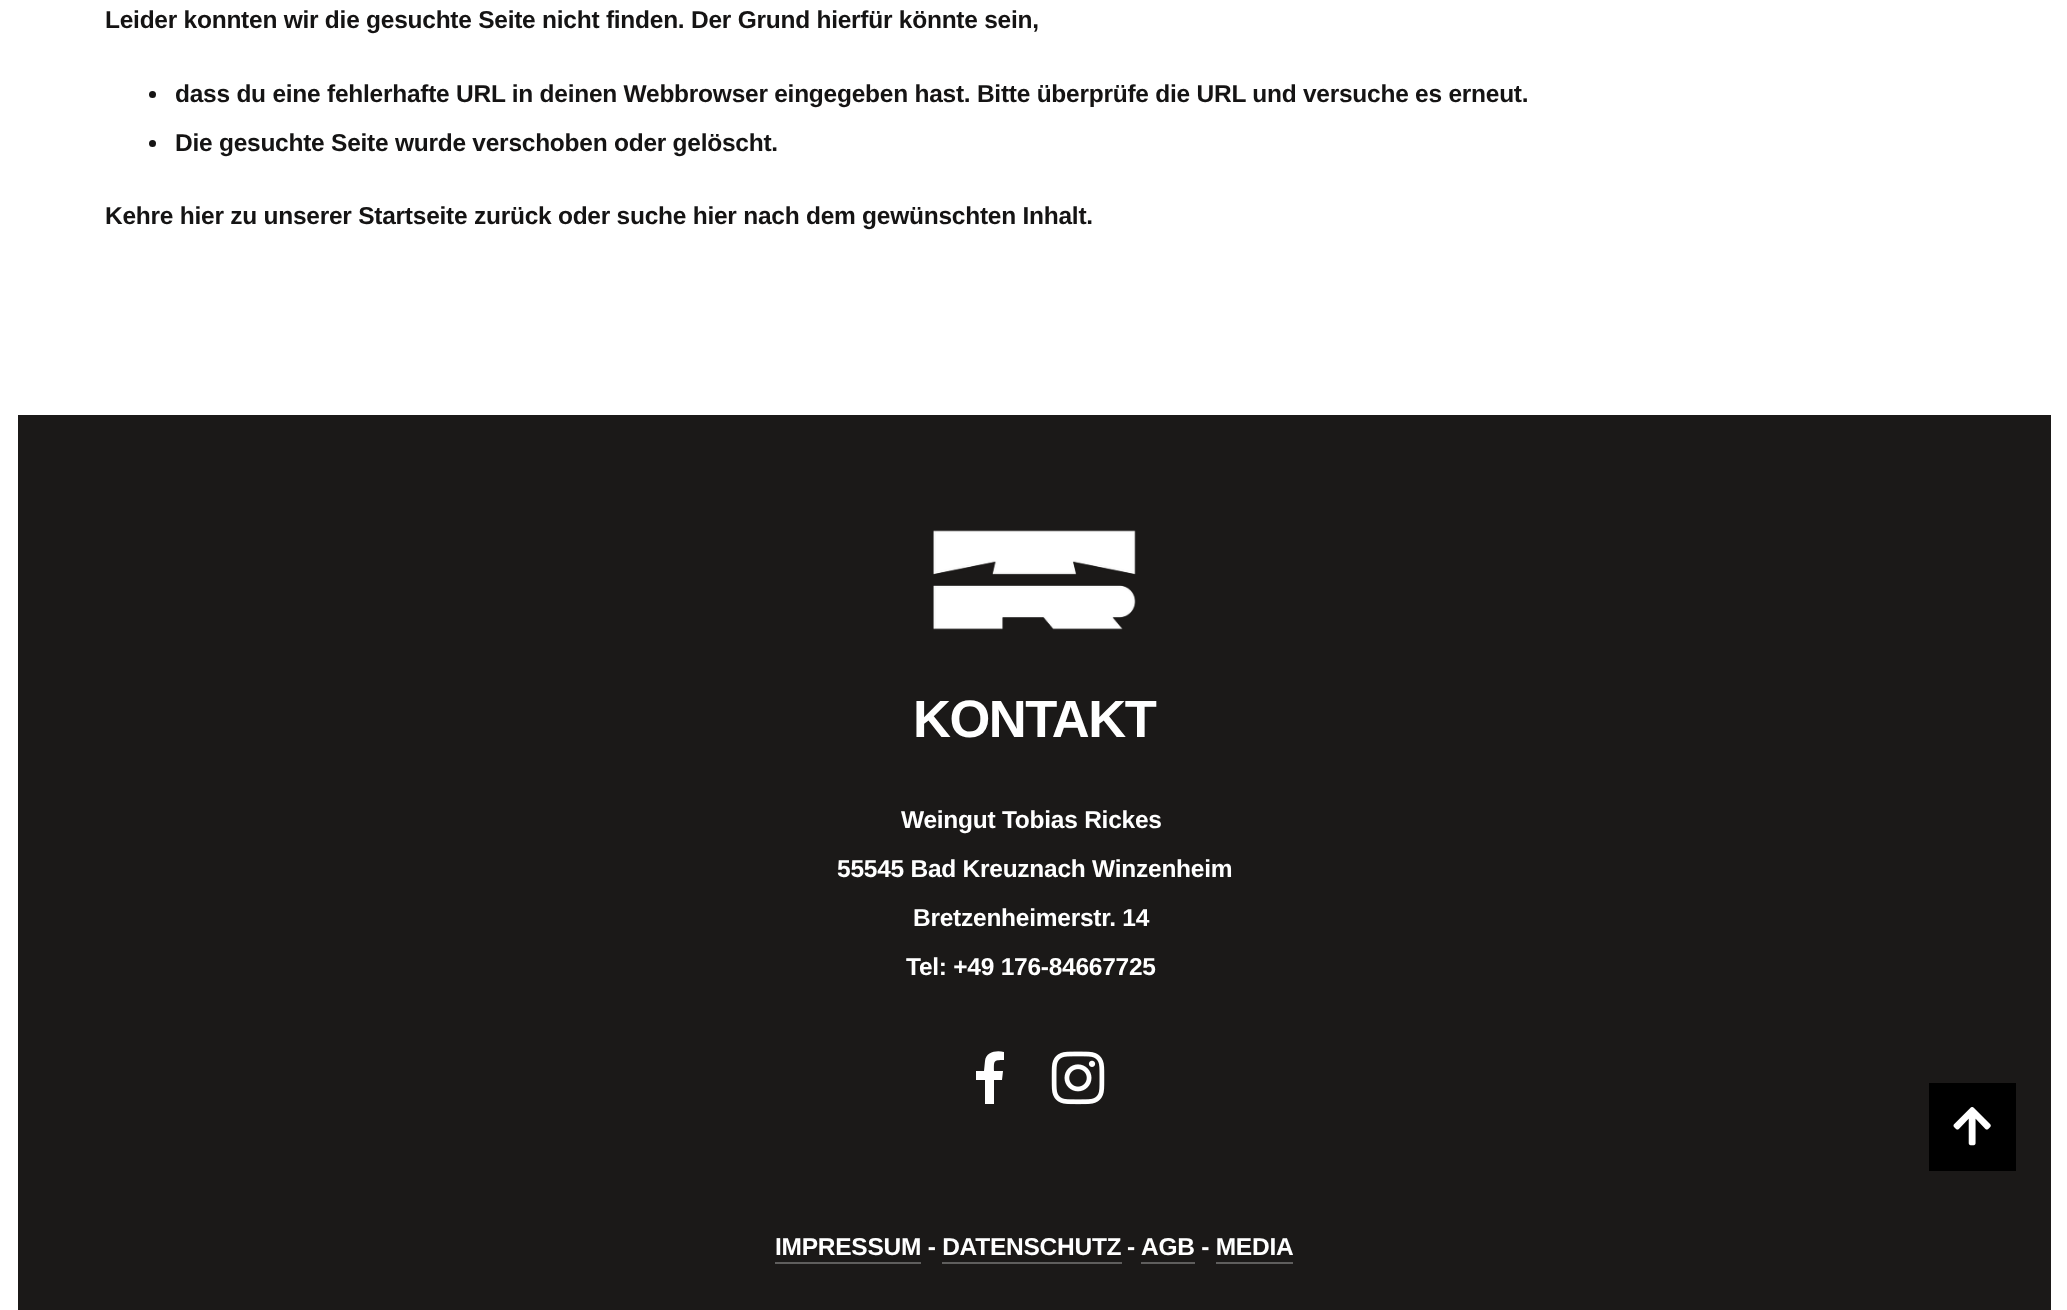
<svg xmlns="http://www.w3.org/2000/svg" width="2067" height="1310">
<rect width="100%" height="100%" fill="#fff"/>
<text x="105" y="28" style="font-family:Liberation Sans;font-size:24.5px;font-weight:bold;letter-spacing:-0.25px;fill:#151414">Leider konnten wir die gesuchte Seite nicht finden. Der Grund hierfür könnte sein,</text>
<circle cx="152.5" cy="94.5" r="3.5" fill="#151414"/>
<text x="175" y="102" style="font-family:Liberation Sans;font-size:24.5px;font-weight:bold;letter-spacing:-0.25px;fill:#151414">dass du eine fehlerhafte URL in deinen Webbrowser eingegeben hast. Bitte überprüfe die URL und versuche es erneut.</text>
<circle cx="152.5" cy="143.5" r="3.5" fill="#151414"/>
<text x="175" y="151" style="font-family:Liberation Sans;font-size:24.5px;font-weight:bold;letter-spacing:-0.25px;fill:#151414">Die gesuchte Seite wurde verschoben oder gelöscht.</text>
<text x="105" y="224" style="font-family:Liberation Sans;font-size:24.5px;font-weight:bold;letter-spacing:-0.25px;fill:#151414">Kehre hier zu unserer Startseite zurück oder suche hier nach dem gewünschten Inhalt.</text>
<rect x="18" y="415" width="2033" height="895" fill="#1b1918"/>
<image x="933" y="530" width="203" height="100" href="media/1.png"/>
<text x="913" y="737" style="font-family:Liberation Sans;font-size:52.5px;font-weight:bold;letter-spacing:-1.5px;fill:#fff">KONTAKT</text>
<text x="901" y="828" style="font-family:Liberation Sans;font-size:24.5px;font-weight:bold;letter-spacing:-0.25px;fill:#fff">Weingut Tobias Rickes</text>
<text x="837" y="877" style="font-family:Liberation Sans;font-size:24.5px;font-weight:bold;letter-spacing:-0.25px;fill:#fff">55545 Bad Kreuznach Winzenheim</text>
<text x="913" y="926" style="font-family:Liberation Sans;font-size:24.5px;font-weight:bold;letter-spacing:-0.25px;fill:#fff">Bretzenheimerstr. 14</text>
<text x="906" y="975" style="font-family:Liberation Sans;font-size:24.5px;font-weight:bold;letter-spacing:-0.25px;fill:#fff">Tel: +49 176-84667725</text>
<path d="M994 1104v-24h8l1-9h-9c0-10-1-11 10-11v-8c-8-2-18 0-19 9l-1 10h-8v9h9v24z" fill="#fff"/>
<image x="1051" y="1051" width="54" height="54" href="media/2.png"/>
<text x="775" y="1255" style="font-family:Liberation Sans;font-size:24.5px;font-weight:bold;letter-spacing:-0.25px;fill:#fff">IMPRESSUM - DATENSCHUTZ</text>
<rect x="775" y="1262" width="146" height="2" fill="#5f5e5d"/>
<text x="1127" y="1255" style="font-family:Liberation Sans;font-size:24.5px;font-weight:bold;letter-spacing:-0.25px;fill:#fff">-</text>
<text x="1141" y="1255" style="font-family:Liberation Sans;font-size:24.5px;font-weight:bold;letter-spacing:-0.25px;fill:#fff">AGB - MEDIA</text>
<rect x="1141" y="1262" width="54" height="2" fill="#5f5e5d"/>
<rect x="942" y="1262" width="180" height="2" fill="#5f5e5d"/>
<rect x="1216" y="1262" width="77" height="2" fill="#5f5e5d"/>
<rect x="1929" y="1083" width="87" height="88" fill="#000"/>
<image x="1953" y="1107" width="38" height="39" href="media/3.png"/>
</svg>
